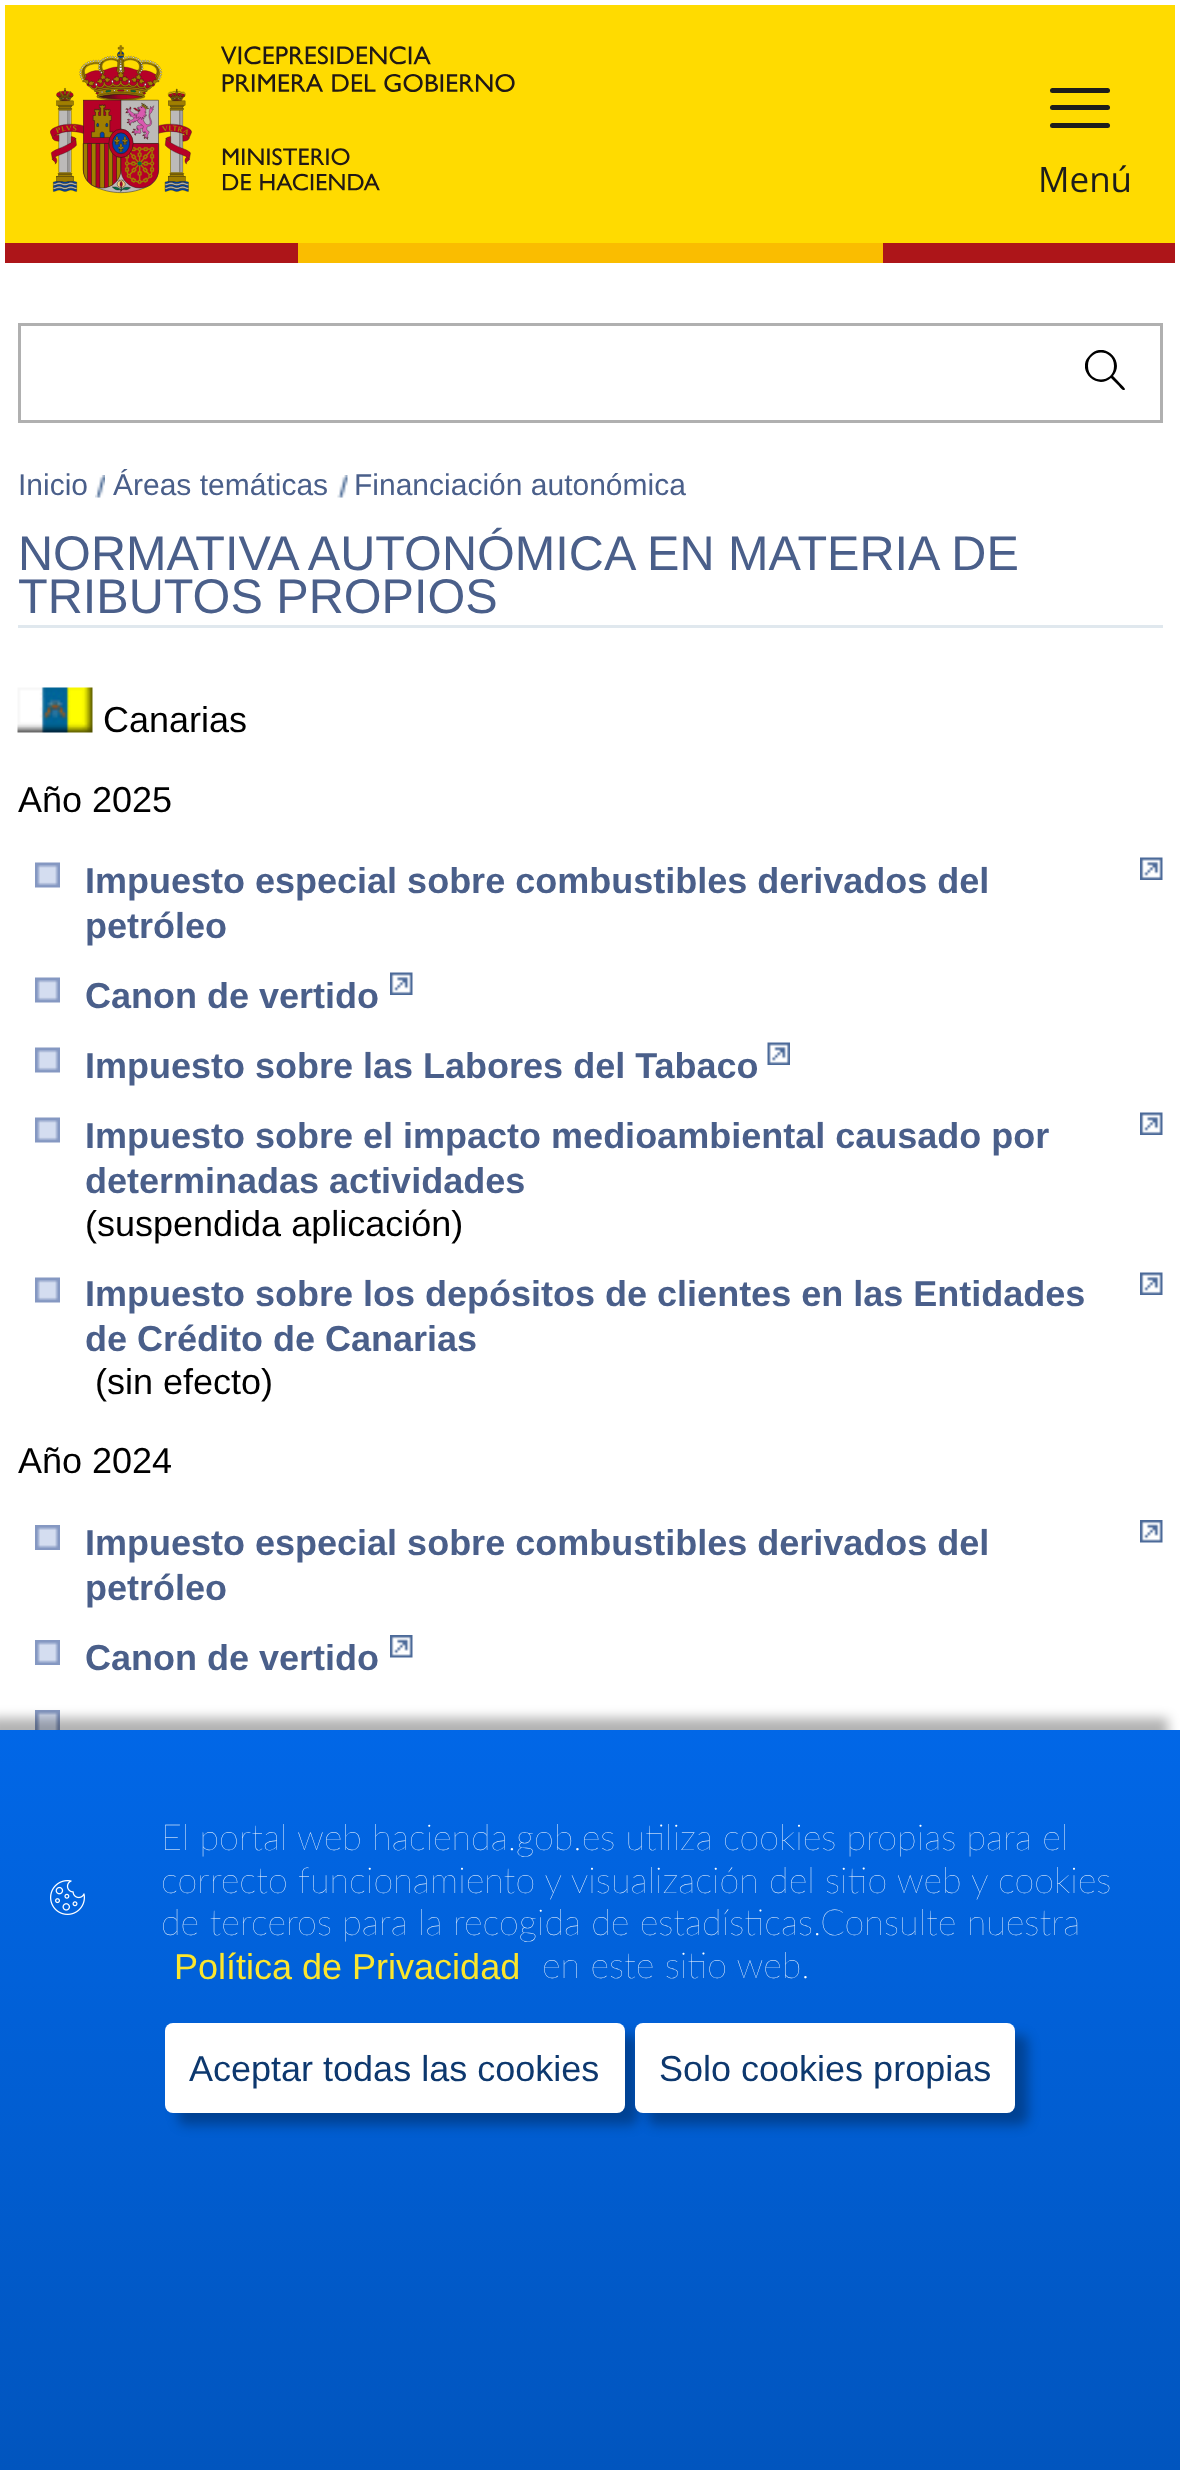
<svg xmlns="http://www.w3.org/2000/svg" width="1180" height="2470">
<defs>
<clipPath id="clip1"><rect x="1085" y="350" width="40" height="40"/></clipPath>
<linearGradient id="g1" gradientUnits="userSpaceOnUse" x1="590" y1="1730" x2="590" y2="2470"><stop offset="0" stop-color="#0167e7"/><stop offset="1" stop-color="#0155be"/></linearGradient>
</defs>
<rect width="100%" height="100%" fill="#fff"/>
<rect x="5" y="5" width="1170" height="238" fill="#ffdb00"/>
<image x="50" y="45" width="465" height="149" href="media/1.png"/>
<rect x="1050" y="88" width="60" height="5" rx="2.5" fill="#1d1d1b"/>
<rect x="1050" y="105" width="60" height="5" rx="2.5" fill="#1d1d1b"/>
<rect x="1050" y="123" width="60" height="5" rx="2.5" fill="#1d1d1b"/>
<text x="1038" y="192" style="font-family:Open Sans;font-size:35px;fill:#1d1d1b">Menú</text>
<rect x="5" y="243" width="293" height="20" fill="#ad1519"/>
<rect x="298" y="243" width="585" height="20" fill="#fabd00"/>
<rect x="883" y="243" width="292" height="20" fill="#ad1519"/>
<rect x="19.5" y="324.5" width="1142" height="97" fill="none" stroke="#b0b0b0" stroke-width="3"/>
<g clip-path="url(#clip1)">
<path d="M1114 366c0 18-26 18-26 0c0-18 26-18 26 0zm-3 12c-15 13-36-9-21-23c14-15 36 6 23 21c2 2 12 12 12 13c-1 4-6-3-6-3z" fill="#000" fill-rule="evenodd"/>
</g>
<text x="18" y="495" style="font-family:Liberation Sans;font-size:30px;fill:#4a5f8a">Inicio</text>
<image x="95" y="475" width="10" height="23" href="media/2.png"/>
<text x="113" y="495" style="font-family:Liberation Sans;font-size:30px;fill:#4a5f8a">Áreas temáticas</text>
<image x="337" y="475" width="11" height="23" href="media/3.png"/>
<text x="354" y="495" style="font-family:Liberation Sans;font-size:30px;fill:#4a5f8a">Financiación autonómica</text>
<rect x="18" y="625" width="1145" height="3" fill="#e0e8ee"/>
<text x="18" y="570" style="font-family:Liberation Sans;font-size:48.6px;fill:#4a5f8a">NORMATIVA AUTONÓMICA EN MATERIA DE</text>
<text x="18" y="613" style="font-family:Liberation Sans;font-size:48.6px;fill:#4a5f8a">TRIBUTOS PROPIOS</text>
<image x="17" y="687" width="76" height="46" href="media/4.png"/>
<text x="103" y="732" style="font-family:Liberation Sans;font-size:36px;fill:#000">Canarias</text>
<text x="18" y="812" style="font-family:Liberation Sans;font-size:36px;fill:#000">Año 2025</text>
<image x="35" y="862" width="25" height="26" href="media/5.png"/>
<text x="85" y="893" style="font-family:Liberation Sans;font-size:36px;font-weight:bold;fill:#4a5f8a">Impuesto especial sobre combustibles derivados del</text>
<image x="1140" y="857" width="23" height="23" href="media/6.png"/>
<text x="85" y="938" style="font-family:Liberation Sans;font-size:36px;font-weight:bold;fill:#4a5f8a">petróleo</text>
<image x="35" y="977" width="25" height="26" href="media/5.png"/>
<text x="85" y="1008" style="font-family:Liberation Sans;font-size:36px;font-weight:bold;fill:#4a5f8a">Canon de vertido</text>
<image x="390" y="972" width="23" height="23" href="media/7.png"/>
<image x="35" y="1047" width="25" height="26" href="media/5.png"/>
<text x="85" y="1078" style="font-family:Liberation Sans;font-size:36px;font-weight:bold;fill:#4a5f8a">Impuesto sobre las Labores del Tabaco</text>
<image x="767" y="1042" width="23" height="23" href="media/8.png"/>
<image x="35" y="1117" width="25" height="26" href="media/5.png"/>
<text x="85" y="1148" style="font-family:Liberation Sans;font-size:36px;font-weight:bold;fill:#4a5f8a">Impuesto sobre el impacto medioambiental causado por</text>
<image x="1140" y="1112" width="23" height="23" href="media/6.png"/>
<text x="85" y="1193" style="font-family:Liberation Sans;font-size:36px;font-weight:bold;fill:#4a5f8a">determinadas actividades</text>
<text x="85" y="1236" style="font-family:Liberation Sans;font-size:36px;fill:#000">(suspendida aplicación)</text>
<image x="35" y="1277" width="25" height="26" href="media/5.png"/>
<text x="85" y="1306" style="font-family:Liberation Sans;font-size:36px;font-weight:bold;fill:#4a5f8a">Impuesto sobre los depósitos de clientes en las Entidades</text>
<image x="1140" y="1272" width="23" height="23" href="media/6.png"/>
<text x="85" y="1351" style="font-family:Liberation Sans;font-size:36px;font-weight:bold;fill:#4a5f8a">de Crédito de Canarias</text>
<text x="95" y="1394" style="font-family:Liberation Sans;font-size:36px;fill:#000">(sin efecto)</text>
<text x="18" y="1473" style="font-family:Liberation Sans;font-size:36px;fill:#000">Año 2024</text>
<image x="35" y="1525" width="25" height="25" href="media/9.png"/>
<text x="85" y="1555" style="font-family:Liberation Sans;font-size:36px;font-weight:bold;fill:#4a5f8a">Impuesto especial sobre combustibles derivados del</text>
<image x="1140" y="1520" width="23" height="23" href="media/10.png"/>
<text x="85" y="1600" style="font-family:Liberation Sans;font-size:36px;font-weight:bold;fill:#4a5f8a">petróleo</text>
<image x="35" y="1640" width="25" height="25" href="media/9.png"/>
<text x="85" y="1670" style="font-family:Liberation Sans;font-size:36px;font-weight:bold;fill:#4a5f8a">Canon de vertido</text>
<image x="390" y="1635" width="23" height="23" href="media/11.png"/>
<image x="35" y="1710" width="25" height="20" href="media/12.png"/>
<rect x="-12" y="1718" width="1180" height="740" fill="#0000004d" filter="blur(6px)"/>
<rect y="1730" width="1180" height="740" fill="url(#g1)"/>
<image x="50" y="1880" width="35" height="35" href="media/13.png"/>
<text x="161" y="1850" style="font-family:Lato;font-size:36px;font-weight:200;fill:#fff">El portal web hacienda.gob.es utiliza cookies propias para el</text>
<text x="161" y="1893" style="font-family:Lato;font-size:36px;font-weight:200;fill:#fff">correcto funcionamiento y visualización del sitio web y cookies</text>
<text x="161" y="1935" style="font-family:Lato;font-size:36px;font-weight:200;fill:#fff">de terceros para la recogida de estadísticas.Consulte nuestra</text>
<text x="174" y="1979" style="font-family:Liberation Sans;font-size:36px;fill:#fce62d">Política de Privacidad</text>
<text x="542" y="1978" style="font-family:Lato;font-size:36px;font-weight:200;fill:#fff">en este sitio web.</text>
<rect x="178" y="2035" width="460" height="90" rx="8" fill="#0000004d" filter="blur(6px)"/>
<rect x="165" y="2023" width="460" height="90" rx="8" fill="#fff"/>
<text x="189" y="2081" style="font-family:Liberation Sans;font-size:36px;fill:#0d386e">Aceptar todas las cookies</text>
<rect x="648" y="2035" width="380" height="90" rx="8" fill="#0000004d" filter="blur(6px)"/>
<rect x="635" y="2023" width="380" height="90" rx="8" fill="#fff"/>
<text x="659" y="2081" style="font-family:Liberation Sans;font-size:36px;fill:#0d386e">Solo cookies propias</text>
</svg>
